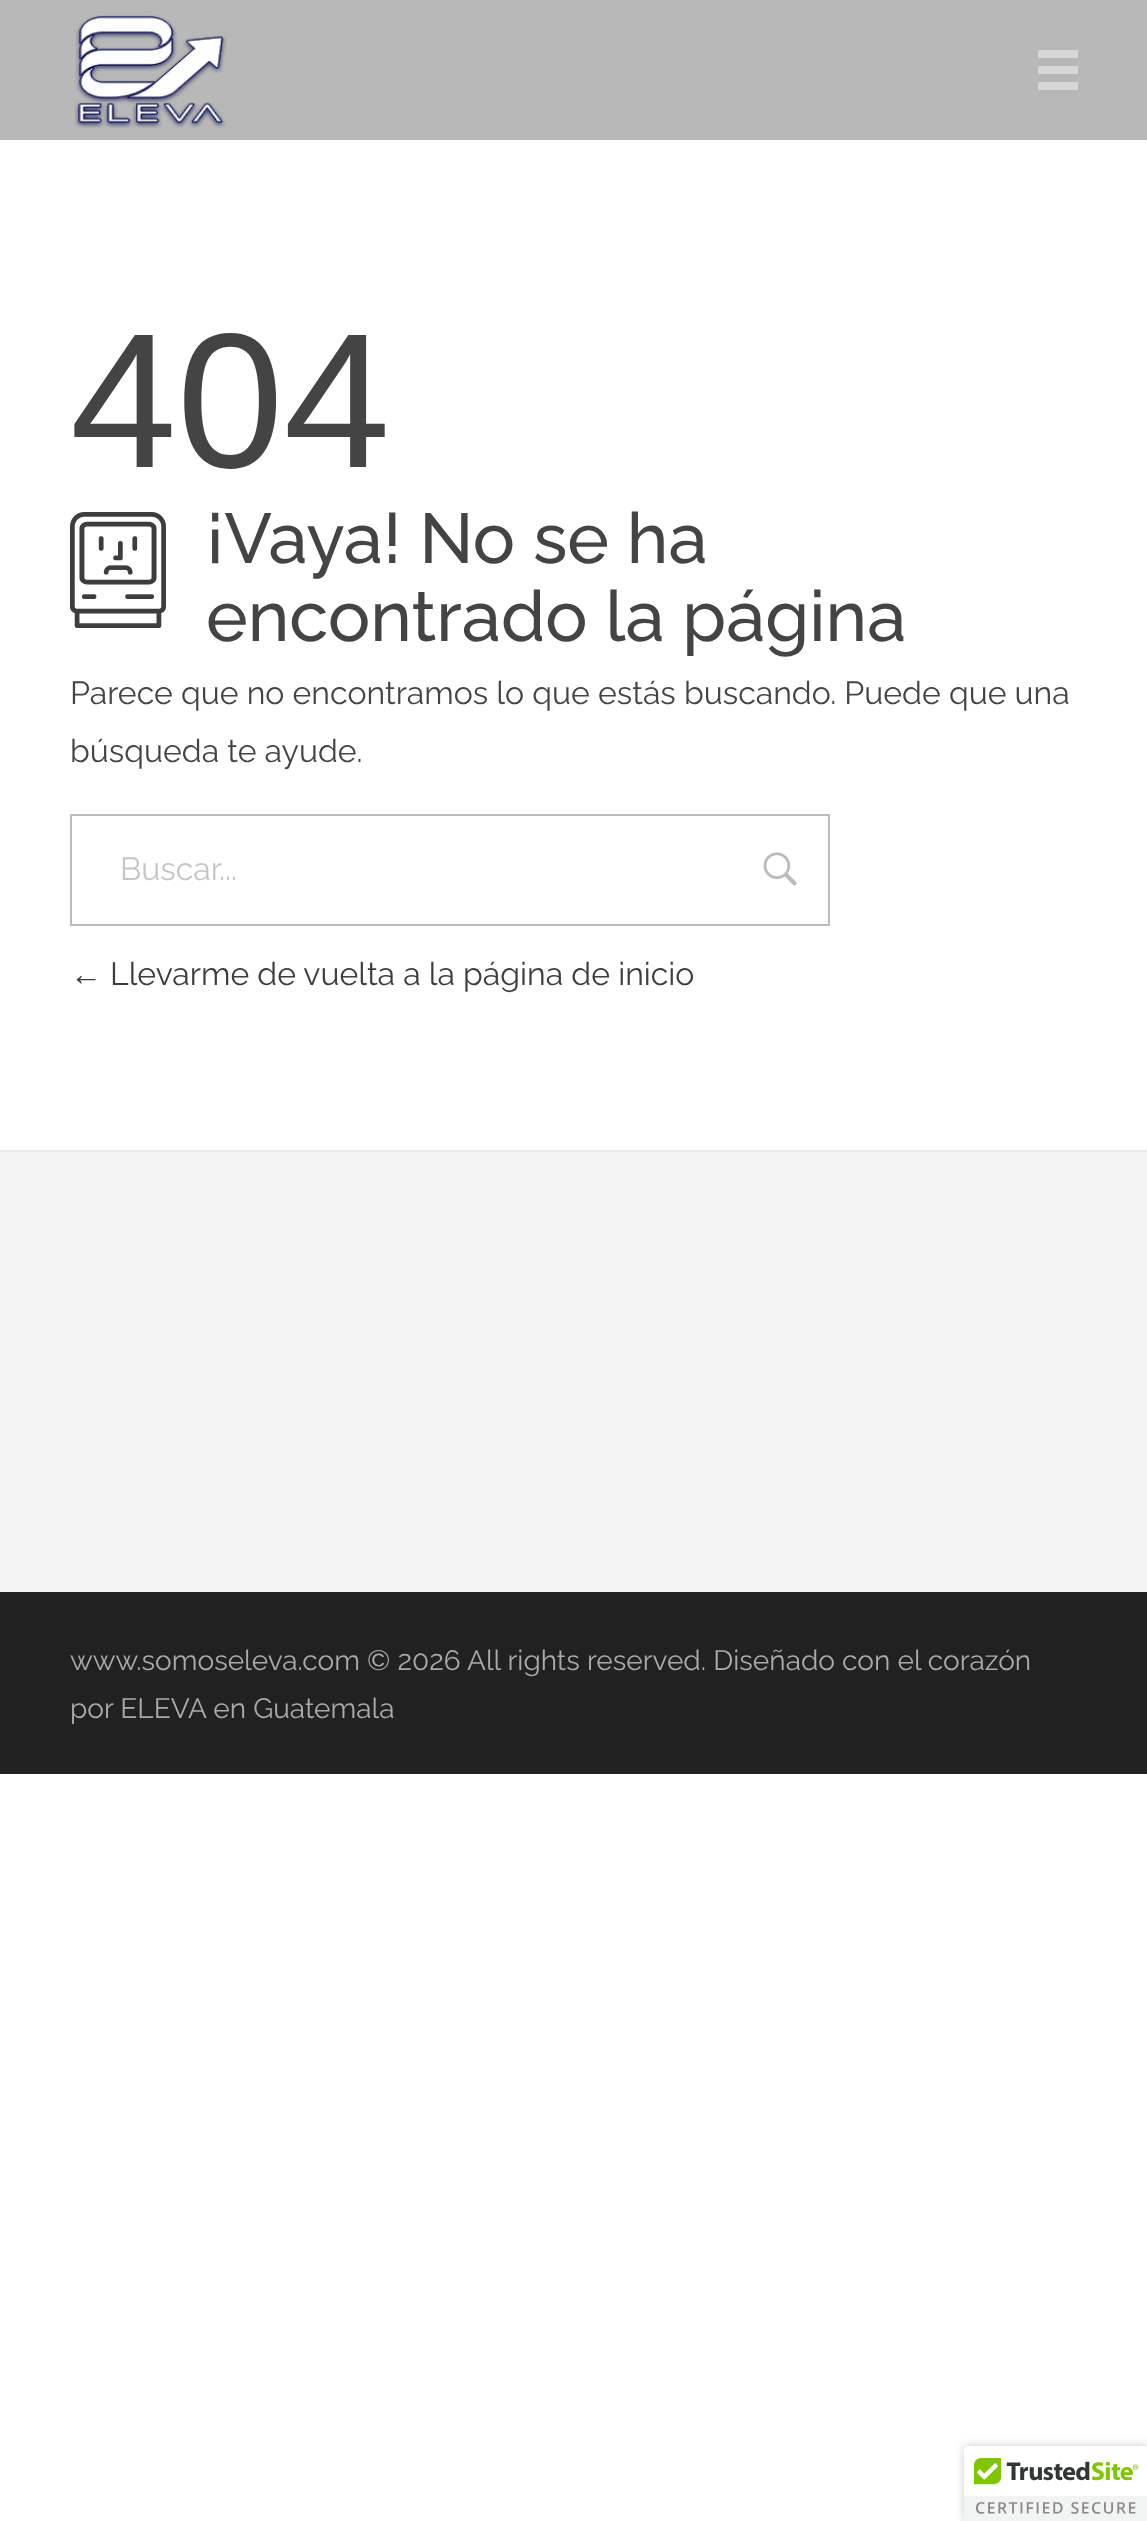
<svg xmlns="http://www.w3.org/2000/svg" width="1147" height="2521">
<rect width="100%" height="100%" fill="#fff"/>
<rect width="1147" height="140" fill="#b8b8b8"/>
<image x="74" y="15" width="153" height="113" href="media/1.png"/>
<rect x="1038" y="50" width="40" height="8" fill="#d6d6d6"/>
<rect x="1038" y="66" width="40" height="8" fill="#d6d6d6"/>
<rect x="1038" y="82" width="40" height="8" fill="#d6d6d6"/>
<text x="70" y="467" style="font-family:Liberation Sans;font-size:192px;fill:#444">404</text>
<image x="70" y="512" width="96" height="116" href="media/2.png"/>
<text x="206" y="563" style="font-family:Raleway;font-size:70.5px;font-weight:500;fill:#444">¡Vaya! No se ha</text>
<text x="206" y="641" style="font-family:Raleway;font-size:70.5px;font-weight:500;fill:#444">encontrado la página</text>
<text x="70" y="704" style="font-family:Raleway;font-size:32px;fill:#444">Parece que no encontramos lo que estás buscando. Puede que una</text>
<text x="70" y="762" style="font-family:Raleway;font-size:32px;fill:#444">búsqueda te ayude.</text>
<rect x="71" y="815" width="758" height="110" fill="none" stroke="#bbb" stroke-width="2"/>
<text x="120" y="880" style="font-family:Raleway;font-size:32px;fill:#c5c5c5">Buscar...</text>
<image x="763" y="852" width="34" height="34" href="media/3.png"/>
<text x="70" y="985" style="font-family:Liberation Sans;font-size:32px;fill:#3d3d3d">←</text>
<text x="110" y="985" style="font-family:Raleway;font-size:32px;fill:#3d3d3d">Llevarme de vuelta a la página de inicio</text>
<rect y="1152" width="1147" height="440" fill="#f3f3f3"/>
<rect y="1150" width="1147" height="2" fill="#eaeaea"/>
<rect y="1592" width="1147" height="182" fill="#212121"/>
<text x="70" y="1670" style="font-family:Raleway;font-size:28px;fill:#aaa">www.somoseleva.com © 2026 All rights reserved. Diseñado con el corazón</text>
<text x="70" y="1718" style="font-family:Raleway;font-size:28px;fill:#aaa">por ELEVA en Guatemala</text>
<rect x="964" y="2446" width="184" height="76" rx="4" fill="#00000033" filter="blur(5px)"/>
<path d="M968 2446h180v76h-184v-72c0-2 2-4 4-4z" fill="#fff"/>
<image x="964" y="2446" width="183" height="75" href="media/4.png"/>
</svg>
